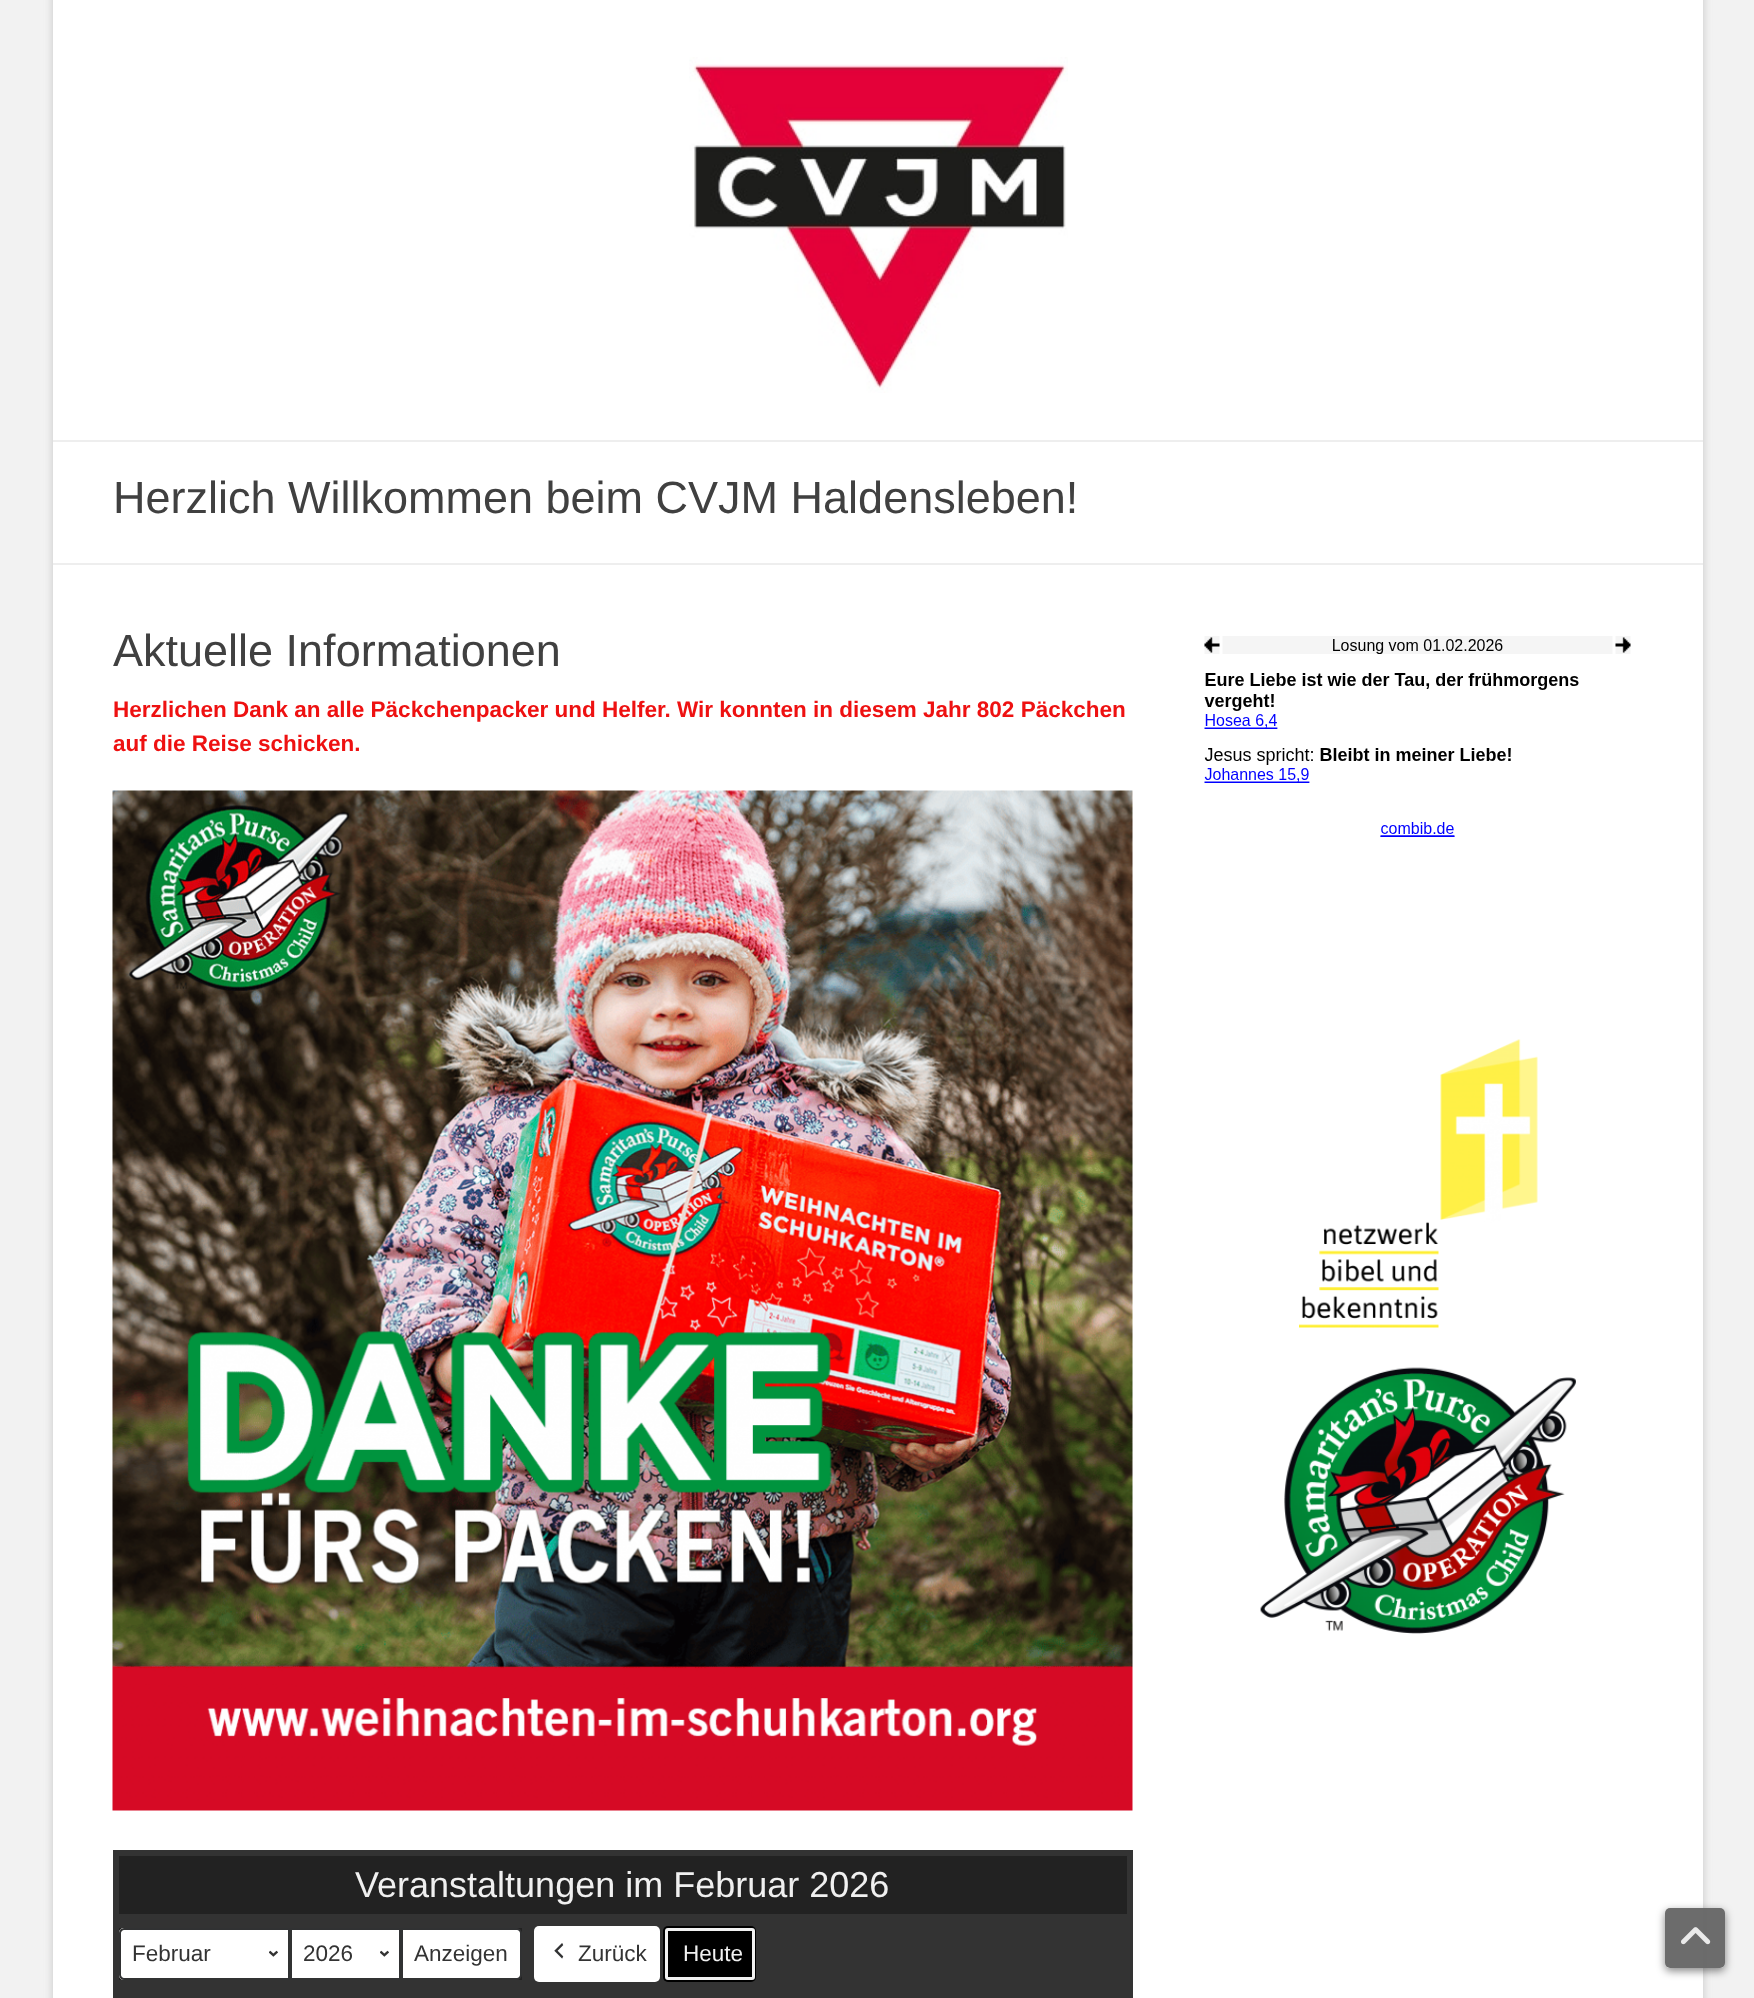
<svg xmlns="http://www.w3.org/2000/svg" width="1754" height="1998">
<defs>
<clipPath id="clip1"><path d="M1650 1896h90v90h-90zm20 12h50c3 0 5 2 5 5v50c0 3-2 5-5 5h-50c-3 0-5-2-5-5v-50c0-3 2-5 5-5z" clip-rule="evenodd"/></clipPath>
</defs>
<rect width="100%" height="100%" fill="#f2f2f2"/>
<rect x="53" y="-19" width="1650" height="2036" rx="5" fill="#6464644d" filter="blur(4.5px)"/>
<rect x="53" width="1650" height="1998" fill="#fff"/>
<image x="689" y="57" width="379" height="336" href="media/1.png"/>
<rect x="53" y="440" width="1650" height="2" fill="#eee"/>
<rect x="53" y="563" width="1650" height="2" fill="#eee"/>
<text x="113" y="513" style="font-family:Liberation Sans;font-size:45px;fill:#404040">Herzlich Willkommen beim CVJM Haldensleben!</text>
<text x="113" y="666" style="font-family:Liberation Sans;font-size:45px;fill:#404040">Aktuelle Informationen</text>
<text x="113" y="717" style="font-family:Liberation Sans;font-size:22.5px;font-weight:bold;fill:#e11">Herzlichen Dank an alle Päckchenpacker und Helfer. Wir konnten in diesem Jahr 802 Päckchen</text>
<text x="113" y="751" style="font-family:Liberation Sans;font-size:22.5px;font-weight:bold;fill:#e11">auf die Reise schicken.</text>
<image x="112" y="790" width="1021" height="1021" href="media/2.png"/>
<rect x="113" y="1850" width="1020" height="148" fill="#333"/>
<rect x="119" y="1856" width="1008" height="58" fill="#222"/>
<text x="355" y="1897" style="font-family:Liberation Sans;font-size:36px;fill:#f0f0f0">Veranstaltungen im Februar 2026</text>
<rect x="119" y="1928" width="403" height="52" fill="#222"/>
<path d="M124 1928h166v52h-166c-3 0-5-2-5-5v-42c0-3 2-5 5-5z" fill="#fff"/>
<image x="269" y="1950" width="9" height="7" href="media/3.png"/>
<path d="M124 1929h165v50h-165c-2 0-4-2-4-4v-42c0-2 2-4 4-4z" fill="none" stroke="#313233" stroke-width="2"/>
<text x="132" y="1961" style="font-family:Liberation Sans;font-size:22.5px;fill:#333">Februar</text>
<rect x="292" y="1930" width="107" height="48" fill="#fff"/>
<image x="380" y="1950" width="9" height="7" href="media/3.png"/>
<rect x="291" y="1929" width="109" height="50" fill="none" stroke="#313233" stroke-width="2"/>
<text x="303" y="1961" style="font-family:Liberation Sans;font-size:22.5px;fill:#333">2026</text>
<path d="M402 1929h115c2 0 4 2 4 4v42c0 2-2 4-4 4h-115z" fill="#fff" stroke="#313233" stroke-width="2"/>
<text x="414" y="1961" style="font-family:Liberation Sans;font-size:22.5px;fill:#333">Anzeigen</text>
<rect x="534" y="1926" width="126" height="56" rx="5" fill="#fff"/>
<image x="554" y="1943" width="10" height="16" href="media/4.png"/>
<text x="578" y="1961" style="font-family:Liberation Sans;font-size:22.5px;fill:#333">Zurück</text>
<rect x="663" y="1926" width="93" height="56" rx="5" fill="#000"/>
<rect x="666.5" y="1929.5" width="87" height="49" rx="1.5" fill="none" stroke="#f2f2f2" stroke-width="3"/>
<text x="683" y="1961" style="font-family:Liberation Sans;font-size:22.5px;fill:#f0f0f0">Heute</text>
<image x="1204" y="636" width="427" height="201" href="media/5.png"/>
<image x="1299" y="1039" width="239" height="289" href="media/6.png"/>
<image x="1260" y="1367" width="316" height="267" href="media/7.png"/>
<g clip-path="url(#clip1)">
<rect x="1665" y="1911" width="60" height="60" rx="5" fill="#0000007a" filter="blur(4.5px)"/>
</g>
<rect x="1665" y="1908" width="60" height="60" rx="5" fill="#666666f5"/>
<image x="1681" y="1927" width="30" height="18" href="media/8.png"/>
</svg>
